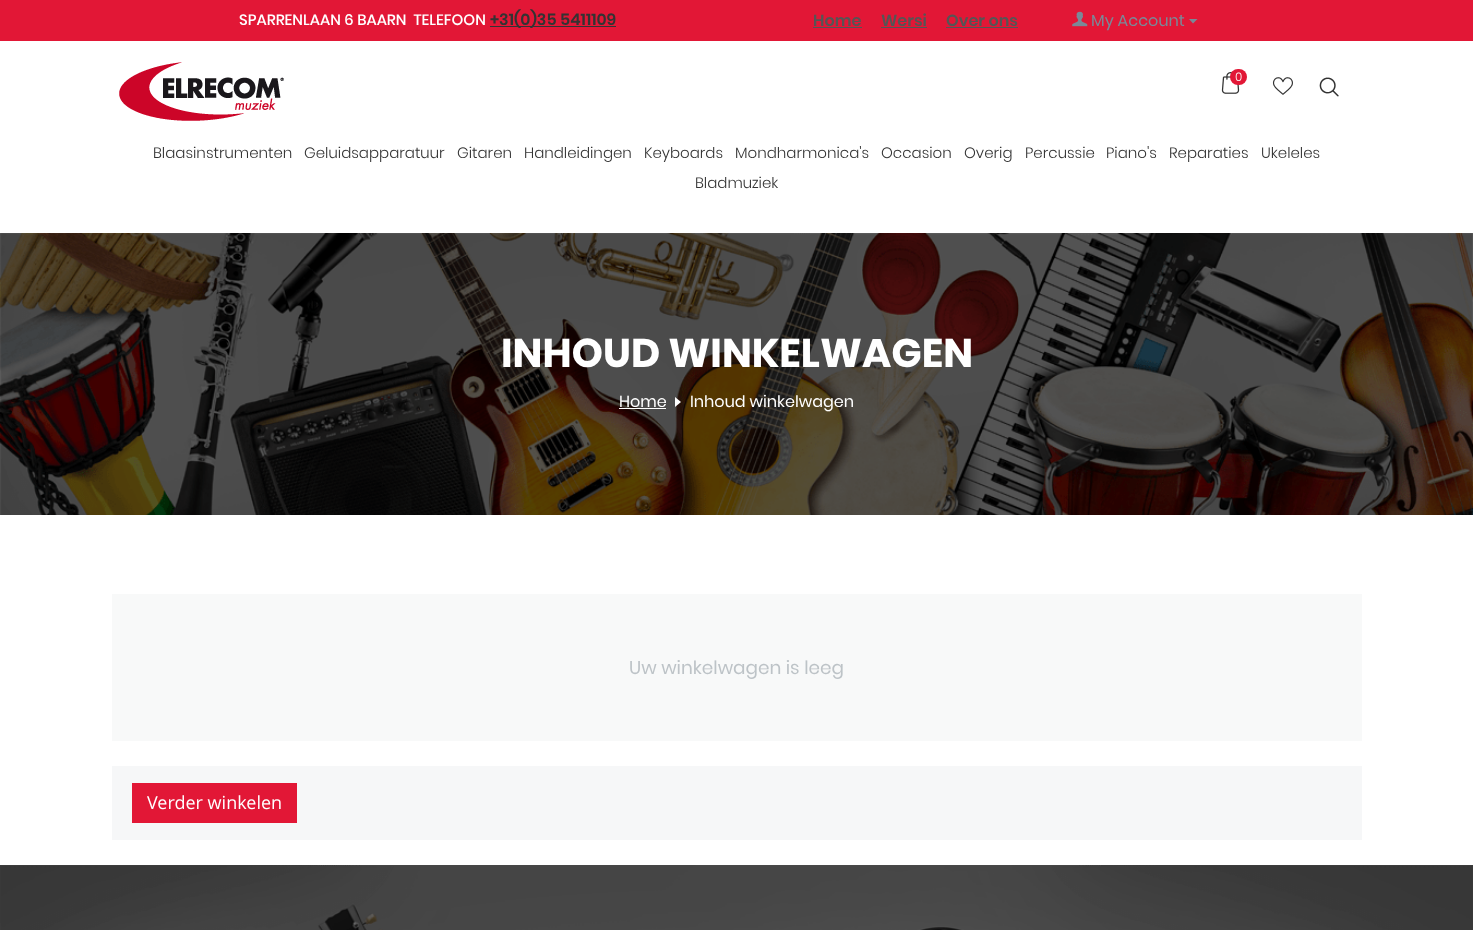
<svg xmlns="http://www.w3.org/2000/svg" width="1473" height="930">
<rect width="100%" height="100%" fill="#fff"/>
<rect width="1473" height="41" fill="#e21736"/>
<text x="239" y="25" style="font-family:Poppins;font-size:15px;font-weight:500;fill:#fff" xml:space="preserve">SPARRENLAAN 6 BAARN  TELEFOON</text>
<rect x="490" y="26" width="126" height="1" fill="#333"/>
<text x="490" y="25" style="font-family:Poppins;font-size:16px;font-weight:600;fill:#333">+31(0)35 5411109</text>
<text x="813" y="26" style="font-family:Poppins;font-size:16px;font-weight:600;fill:#555">Home</text>
<rect x="813" y="27" width="49" height="1" fill="#555"/>
<text x="881" y="26" style="font-family:Poppins;font-size:16px;font-weight:600;fill:#555">Wersi</text>
<rect x="881" y="27" width="46" height="1" fill="#555"/>
<text x="946" y="26" style="font-family:Poppins;font-size:16px;font-weight:600;fill:#555">Over ons</text>
<rect x="946" y="27" width="72" height="1" fill="#555"/>
<image x="1072" y="11" width="16" height="16" href="media/1.png"/>
<text x="1091" y="26" style="font-family:Poppins;font-size:16px;fill:#7a8998">My Account</text>
<path d="M1193 23.5l-4-4.5h8.5z" fill="#7a8998"/>
<image x="119" y="62" width="165" height="59" href="media/2.png"/>
<image x="1221" y="72" width="19" height="22" href="media/3.png"/>
<rect x="1230" y="69" width="17" height="16" rx="8" fill="#e21736"/>
<text x="1235" y="81" style="font-family:Poppins;font-size:12px;font-weight:300;fill:#fff">0</text>
<image x="1272" y="77" width="21" height="18" href="media/4.png"/>
<image x="1319" y="77" width="20" height="20" href="media/5.png"/>
<text x="153" y="158" style="font-family:Poppins;font-size:15px;font-weight:300;fill:#333">Blaasinstrumenten</text>
<text x="304" y="158" style="font-family:Poppins;font-size:15px;font-weight:300;fill:#333">Geluidsapparatuur</text>
<text x="457" y="158" style="font-family:Poppins;font-size:15px;font-weight:300;fill:#333">Gitaren</text>
<text x="524" y="158" style="font-family:Poppins;font-size:15px;font-weight:300;fill:#333">Handleidingen</text>
<text x="644" y="158" style="font-family:Poppins;font-size:15px;font-weight:300;fill:#333">Keyboards</text>
<text x="735" y="158" style="font-family:Poppins;font-size:15px;font-weight:300;fill:#333">Mondharmonica's</text>
<text x="881" y="158" style="font-family:Poppins;font-size:15px;font-weight:300;fill:#333">Occasion</text>
<text x="964" y="158" style="font-family:Poppins;font-size:15px;font-weight:300;fill:#333">Overig</text>
<text x="1025" y="158" style="font-family:Poppins;font-size:15px;font-weight:300;fill:#333">Percussie</text>
<text x="1106" y="158" style="font-family:Poppins;font-size:15px;font-weight:300;fill:#333">Piano's</text>
<text x="1169" y="158" style="font-family:Poppins;font-size:15px;font-weight:300;fill:#333">Reparaties</text>
<text x="1261" y="158" style="font-family:Poppins;font-size:15px;font-weight:300;fill:#333">Ukeleles</text>
<text x="695" y="188" style="font-family:Poppins;font-size:15px;font-weight:300;fill:#333">Bladmuziek</text>
<image x="0" y="233" width="1473" height="282" href="media/6.png"/>
<text x="501" y="367" style="font-family:Poppins;font-size:40px;font-weight:bold;fill:#fff">INHOUD WINKELWAGEN</text>
<text x="619" y="407" style="font-family:Poppins;font-size:16px;fill:#fff">Home</text>
<rect x="619" y="408" width="47" height="1" fill="#fff"/>
<path d="M675 407v-10l6 5z" fill="#fff"/>
<text x="690" y="407" style="font-family:Poppins;font-size:16px;fill:#fff">Inhoud winkelwagen</text>
<rect x="112" y="594" width="1250" height="147" fill="#f8f9f9"/>
<text x="629" y="674" style="font-family:Poppins;font-size:18.4px;fill:#bdc3c7">Uw winkelwagen is leeg</text>
<rect x="112" y="766" width="1250" height="74" fill="#f6f7f8"/>
<rect x="132" y="783" width="165" height="40" fill="#e21736"/>
<text x="147" y="809" style="font-family:Open Sans;font-size:18px;fill:#fff">Verder winkelen</text>
<image x="0" y="865" width="1473" height="65" href="media/7.png"/>
</svg>
